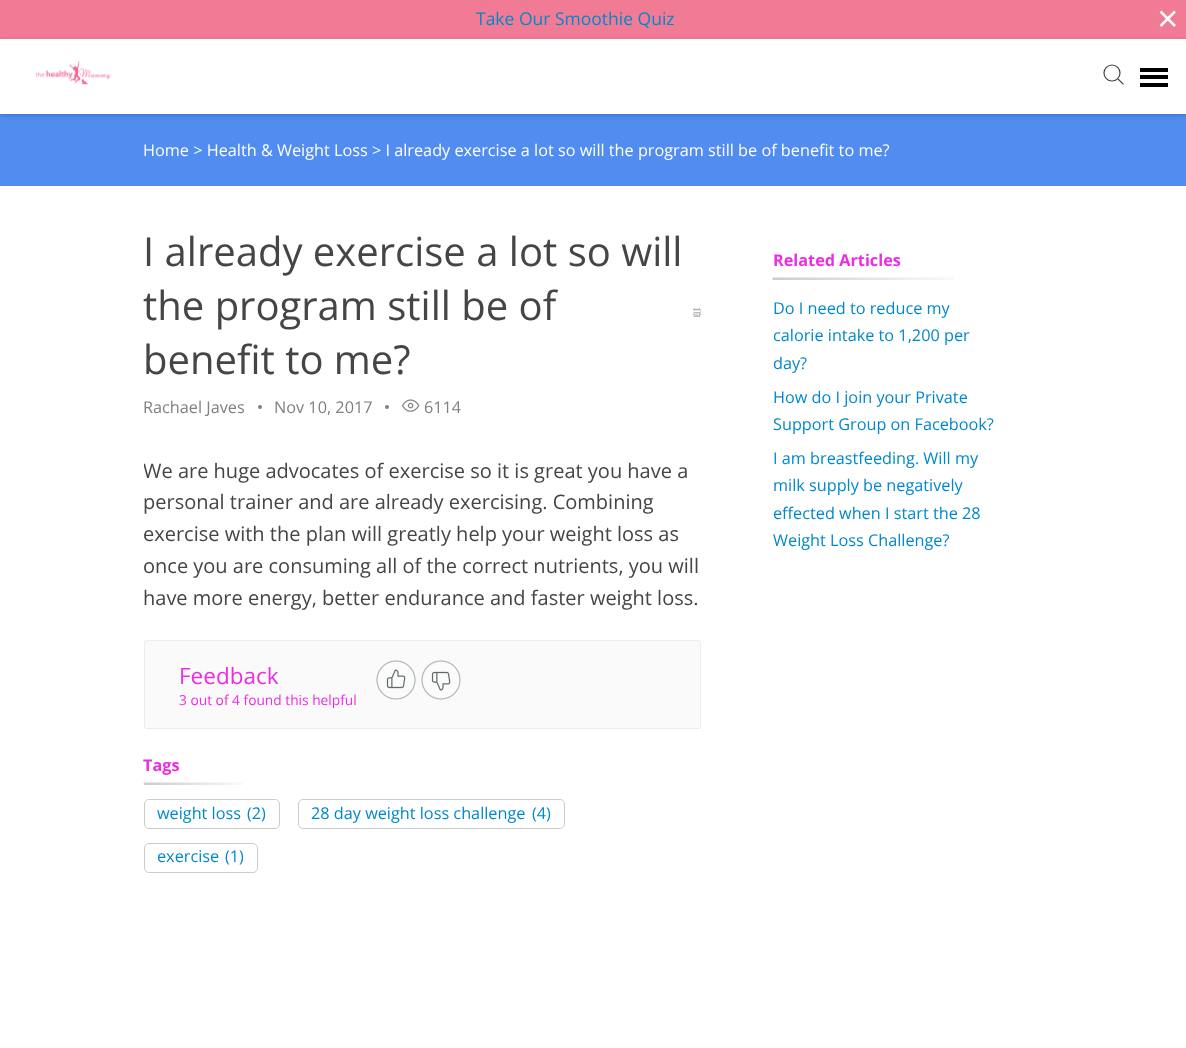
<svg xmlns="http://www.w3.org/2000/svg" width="1186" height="1048">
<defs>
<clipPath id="clip1"><rect x="144" y="455" width="557" height="160"/></clipPath>
</defs>
<rect width="100%" height="100%" fill="#fff"/>
<rect width="1186" height="39" fill="#f17b94"/>
<text x="476" y="25" style="font-family:Open Sans;font-size:17.5px;fill:#08c">Take Our Smoothie Quiz</text>
<path d="M1175 11.5l-14.5 14.5m14.5 0l-14.5-14.5" fill="none" stroke="#fff" stroke-width="2.5"/>
<rect y="114" width="1186" height="72" fill="#518cf1"/>
<rect y="40" width="1186" height="75" fill="#00000033" filter="blur(2px)"/>
<rect y="39" width="1186" height="75" fill="#fff"/>
<image x="35" y="60" width="76" height="25" href="media/1.png"/>
<circle cx="1112" cy="73" r="8" fill="none" stroke="#424242" stroke-width="1.2"/>
<path d="M1118.5 79.5l4.5 4.5" fill="none" stroke="#424242" stroke-width="1.2" stroke-linecap="square"/>
<rect x="1140" y="68" width="28" height="4" fill="#000"/>
<rect x="1140" y="75" width="28" height="4" fill="#000"/>
<rect x="1140" y="83" width="28" height="4" fill="#000"/>
<text x="143" y="156" style="font-family:Open Sans;font-size:16.25px;fill:#fff">Home &gt; Health &amp; Weight Loss &gt; I already exercise a lot so will the program still be of benefit to me?</text>
<text x="143" y="266" style="font-family:Open Sans;font-size:40px;fill:#454545">I already exercise a lot so will</text>
<text x="143" y="320" style="font-family:Open Sans;font-size:40px;fill:#454545">the program still be of</text>
<text x="143" y="374" style="font-family:Open Sans;font-size:40px;fill:#454545">benefit to me?</text>
<image x="693" y="308" width="8" height="9" href="media/2.png"/>
<text x="143" y="413" style="font-family:Open Sans;font-size:16.25px;fill:#808080">Rachael Javes</text>
<circle cx="260" cy="407" r="2" fill="#808080"/>
<text x="274" y="413" style="font-family:Open Sans;font-size:16.25px;fill:#808080">Nov 10, 2017</text>
<circle cx="387" cy="407" r="2" fill="#808080"/>
<image x="402" y="399" width="18" height="13" href="media/3.png"/>
<text x="424" y="413" style="font-family:Open Sans;font-size:16.25px;fill:#808080">6114</text>
<g clip-path="url(#clip1)">
<text x="143" y="478" style="font-family:Open Sans;font-size:20px;fill:#454545">We are huge advocates of exercise so it is great you have a</text>
</g>
<text x="143" y="509" style="font-family:Open Sans;font-size:20px;fill:#454545">personal trainer and are already exercising. Combining</text>
<text x="143" y="541" style="font-family:Open Sans;font-size:20px;fill:#454545">exercise with the plan will greatly help your weight loss as</text>
<text x="143" y="573" style="font-family:Open Sans;font-size:20px;fill:#454545">once you are consuming all of the correct nutrients, you will</text>
<text x="143" y="605" style="font-family:Open Sans;font-size:20px;fill:#454545">have more energy, better endurance and faster weight loss.</text>
<rect x="144.5" y="640.5" width="556" height="88" rx="2" fill="#fafafa" stroke="#ececec"/>
<text x="179" y="684" style="font-family:Open Sans;font-size:22.5px;fill:#ec2ee3">Feedback</text>
<text x="179" y="705" style="font-family:Open Sans;font-size:13.75px;fill:#ec2ee3">3 out of 4 found this helpful</text>
<image x="376" y="660" width="40" height="40" href="media/4.png"/>
<image x="421" y="660" width="40" height="40" href="media/5.png"/>
<image x="143" y="782" width="100" height="3" href="media/6.png"/>
<text x="143" y="771" style="font-family:Open Sans;font-size:16.25px;font-weight:bold;fill:#ec2ee3">Tags</text>
<rect x="144.5" y="799.5" width="135" height="29" rx="4.5" fill="none" stroke="#ccc"/>
<text x="157" y="819" style="font-family:Open Sans;font-size:16.25px;fill:#08c">weight loss</text>
<text x="247" y="819" style="font-family:Open Sans;font-size:16.25px;fill:#08c">(2)</text>
<rect x="298.5" y="799.5" width="266" height="29" rx="4.5" fill="none" stroke="#ccc"/>
<text x="311" y="819" style="font-family:Open Sans;font-size:16.25px;fill:#08c">28 day weight loss challenge</text>
<text x="532" y="819" style="font-family:Open Sans;font-size:16.25px;fill:#08c">(4)</text>
<rect x="144.5" y="843.5" width="113" height="29" rx="4.5" fill="none" stroke="#ccc"/>
<text x="157" y="862" style="font-family:Open Sans;font-size:16.25px;fill:#08c">exercise</text>
<text x="225" y="862" style="font-family:Open Sans;font-size:16.25px;fill:#08c">(1)</text>
<image x="772" y="277" width="182" height="3" href="media/7.png"/>
<text x="773" y="266" style="font-family:Open Sans;font-size:16.25px;font-weight:bold;fill:#ec2ee3">Related Articles</text>
<text x="773" y="314" style="font-family:Open Sans;font-size:16.25px;fill:#08c">Do I need to reduce my</text>
<text x="773" y="341" style="font-family:Open Sans;font-size:16.25px;fill:#08c">calorie intake to 1,200 per</text>
<text x="773" y="369" style="font-family:Open Sans;font-size:16.25px;fill:#08c">day?</text>
<text x="773" y="403" style="font-family:Open Sans;font-size:16.25px;fill:#08c">How do I join your Private</text>
<text x="773" y="430" style="font-family:Open Sans;font-size:16.25px;fill:#08c">Support Group on Facebook?</text>
<text x="773" y="464" style="font-family:Open Sans;font-size:16.25px;fill:#08c">I am breastfeeding. Will my</text>
<text x="773" y="491" style="font-family:Open Sans;font-size:16.25px;fill:#08c">milk supply be negatively</text>
<text x="773" y="519" style="font-family:Open Sans;font-size:16.25px;fill:#08c">effected when I start the 28</text>
<text x="773" y="546" style="font-family:Open Sans;font-size:16.25px;fill:#08c">Weight Loss Challenge?</text>
</svg>
